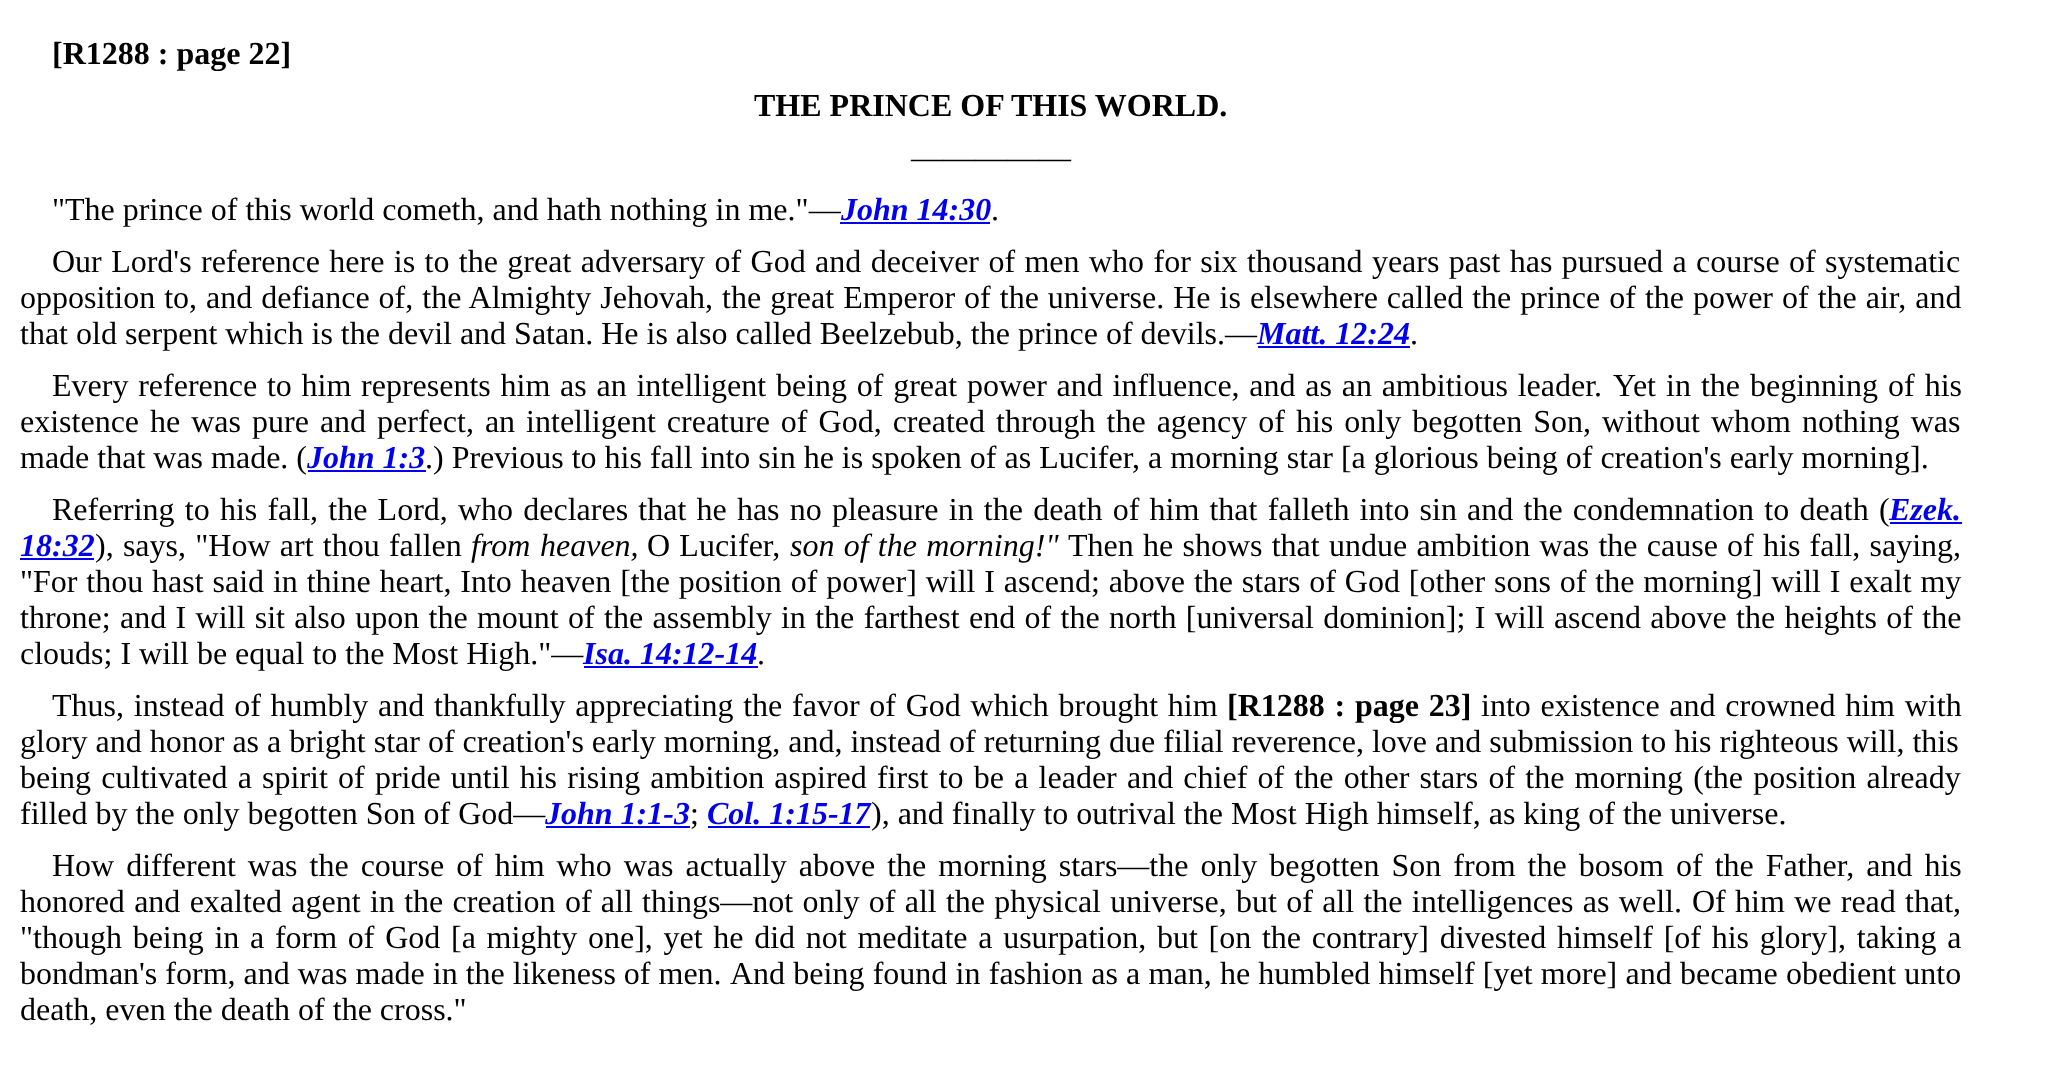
<svg xmlns="http://www.w3.org/2000/svg" width="2059" height="1072">
<rect width="100%" height="100%" fill="#fff"/>
<text x="52" y="64" style="font-family:Liberation Serif;font-size:32px;font-weight:bold;fill:#000">[R1288 : page 22]</text>
<text x="754" y="116" style="font-family:Liberation Serif;font-size:32px;font-weight:bold;fill:#000">THE PRINCE OF THIS WORLD.</text>
<text x="911" y="168" style="font-family:Liberation Serif;font-size:32px;fill:#000">—————</text>
<text x="52" y="220" style="font-family:Liberation Serif;font-size:32px;fill:#000">"The prince of this world cometh, and hath nothing in me."—</text>
<text x="841" y="220" style="font-family:Liberation Serif;font-size:32px;font-weight:bold;font-style:italic;fill:#00e">John 14:30</text>
<rect x="840" y="222" width="150" height="2" fill="#00e"/>
<text x="991" y="220" style="font-family:Liberation Serif;font-size:32px;fill:#000">.</text>
<text x="52" y="272" word-spacing="1.4" style="font-family:Liberation Serif;font-size:32px;fill:#000">Our Lord's reference here is to the great adversary of God and deceiver of men who for six thousand years past has pursued a course of systematic</text>
<text x="20" y="308" word-spacing="1" style="font-family:Liberation Serif;font-size:32px;fill:#000">opposition to, and defiance of, the Almighty Jehovah, the great Emperor of the universe. He is elsewhere called the prince of the power of the air, and</text>
<text x="20" y="344" style="font-family:Liberation Serif;font-size:32px;fill:#000">that old serpent which is the devil and Satan. He is also called Beelzebub, the prince of devils.—</text>
<text x="1257" y="344" style="font-family:Liberation Serif;font-size:32px;font-weight:bold;font-style:italic;fill:#00e">Matt. 12:24</text>
<rect x="1258" y="346" width="152" height="2" fill="#00e"/>
<text x="1410" y="344" style="font-family:Liberation Serif;font-size:32px;fill:#000">.</text>
<text x="52" y="396" word-spacing="1.75" style="font-family:Liberation Serif;font-size:32px;fill:#000">Every reference to him represents him as an intelligent being of great power and influence, and as an ambitious leader.</text>
<text x="1613" y="396" word-spacing="2" style="font-family:Liberation Serif;font-size:32px;fill:#000">Yet in the beginning of his</text>
<text x="20" y="432" word-spacing="3" style="font-family:Liberation Serif;font-size:32px;fill:#000">existence he was pure and perfect, an intelligent creature of God, created through the agency of his only begotten Son, without whom nothing was</text>
<text x="20" y="468" style="font-family:Liberation Serif;font-size:32px;fill:#000">made that was made. (</text>
<text x="307" y="468" style="font-family:Liberation Serif;font-size:32px;font-weight:bold;font-style:italic;fill:#00e">John 1:3</text>
<rect x="308" y="470" width="118" height="2" fill="#00e"/>
<text x="425" y="468" style="font-family:Liberation Serif;font-size:32px;fill:#000">.) Previous to his fall into sin he is spoken of as Lucifer, a morning star [a glorious being of creation's early morning].</text>
<text x="52" y="520" word-spacing="2.2" style="font-family:Liberation Serif;font-size:32px;fill:#000">Referring to his fall, the Lord, who declares that he has no pleasure in the death of him that falleth into sin and the condemnation to death (</text>
<text x="1889" y="520" style="font-family:Liberation Serif;font-size:32px;font-weight:bold;font-style:italic;fill:#00e">Ezek.</text>
<rect x="1890" y="522" width="72" height="2" fill="#00e"/>
<text x="20" y="556" style="font-family:Liberation Serif;font-size:32px;font-weight:bold;font-style:italic;fill:#00e">18:32</text>
<rect x="20" y="558" width="74" height="2" fill="#00e"/>
<text x="95" y="556" word-spacing="1.25" style="font-family:Liberation Serif;font-size:32px;fill:#000">), says, "How art thou fallen</text>
<text x="471" y="556" style="font-family:Liberation Serif;font-size:32px;font-style:italic;fill:#000">from</text>
<text x="540" y="556" style="font-family:Liberation Serif;font-size:32px;font-style:italic;fill:#000">heaven,</text>
<text x="647" y="556" word-spacing="1.25" style="font-family:Liberation Serif;font-size:32px;fill:#000">O Lucifer,</text>
<text x="790" y="556" word-spacing="1.25" style="font-family:Liberation Serif;font-size:32px;font-style:italic;fill:#000">son of the morning!"</text>
<text x="1068" y="556" word-spacing="1.25" style="font-family:Liberation Serif;font-size:32px;fill:#000">Then he shows that undue ambition was the cause of his fall, saying,</text>
<text x="20" y="592" word-spacing="0.85" style="font-family:Liberation Serif;font-size:32px;fill:#000">"For thou hast said in thine heart, Into heaven [the position of power] will I ascend; above the stars of God [other sons of the morning] will I exalt my</text>
<text x="20" y="628" word-spacing="1.35" style="font-family:Liberation Serif;font-size:32px;fill:#000">throne; and I will sit also upon the mount of the assembly in the farthest end of the north [universal dominion]; I will ascend above the heights of the</text>
<text x="20" y="664" style="font-family:Liberation Serif;font-size:32px;fill:#000">clouds; I will be equal to the Most High."—</text>
<text x="583" y="664" style="font-family:Liberation Serif;font-size:32px;font-weight:bold;font-style:italic;fill:#00e">Isa. 14:12-14</text>
<rect x="584" y="666" width="174" height="2" fill="#00e"/>
<text x="757" y="664" style="font-family:Liberation Serif;font-size:32px;fill:#000">.</text>
<text x="52" y="716" word-spacing="1.75" style="font-family:Liberation Serif;font-size:32px;fill:#000">Thus, instead of humbly and thankfully appreciating the favor of God which brought him</text>
<text x="1227" y="716" word-spacing="1.75" style="font-family:Liberation Serif;font-size:32px;font-weight:bold;fill:#000">[R1288 : page 23]</text>
<text x="1481" y="716" word-spacing="1.75" style="font-family:Liberation Serif;font-size:32px;fill:#000">into existence and crowned him with</text>
<text x="20" y="752" style="font-family:Liberation Serif;font-size:32px;fill:#000">glory and honor as a bright star of creation's early morning, and, instead of returning due filial reverence, love and submission to his righteous will, this</text>
<text x="20" y="788" word-spacing="2.2" style="font-family:Liberation Serif;font-size:32px;fill:#000">being cultivated a spirit of pride until his rising ambition aspired first to be a leader and chief of the other stars of the morning (the position already</text>
<text x="20" y="824" style="font-family:Liberation Serif;font-size:32px;fill:#000">filled by the only begotten Son of God—</text>
<text x="545" y="824" style="font-family:Liberation Serif;font-size:32px;font-weight:bold;font-style:italic;fill:#00e">John 1:1-3</text>
<rect x="546" y="826" width="144" height="2" fill="#00e"/>
<text x="690" y="824" style="font-family:Liberation Serif;font-size:32px;fill:#000">;</text>
<text x="707" y="824" style="font-family:Liberation Serif;font-size:32px;font-weight:bold;font-style:italic;fill:#00e">Col. 1:15-17</text>
<rect x="708" y="826" width="162" height="2" fill="#00e"/>
<text x="871" y="824" style="font-family:Liberation Serif;font-size:32px;fill:#000">), and finally to outrival the Most High himself, as king of the universe.</text>
<text x="52" y="876" word-spacing="4" style="font-family:Liberation Serif;font-size:32px;fill:#000">How different was the course of him who was actually above the morning stars—the only begotten Son from the bosom of the Father, and his</text>
<text x="20" y="912" word-spacing="1.3" style="font-family:Liberation Serif;font-size:32px;fill:#000">honored and exalted agent in the creation of all things—not only of all the physical universe, but of all the intelligences as well.</text>
<text x="1692" y="912" word-spacing="1.3" style="font-family:Liberation Serif;font-size:32px;fill:#000">Of him we read that,</text>
<text x="20" y="948" word-spacing="2.7" style="font-family:Liberation Serif;font-size:32px;fill:#000">"though being in a form of God [a mighty one], yet he did not meditate a usurpation, but [on the contrary] divested himself [of his glory], taking a</text>
<text x="20" y="984" style="font-family:Liberation Serif;font-size:32px;fill:#000">bondman's form, and was made in the likeness of men.</text>
<text x="730" y="984" word-spacing="0.25" style="font-family:Liberation Serif;font-size:32px;fill:#000">And being found in fashion as a man, he humbled himself [yet more] and became obedient unto</text>
<text x="20" y="1020" style="font-family:Liberation Serif;font-size:32px;fill:#000">death, even the death of the cross."</text>
</svg>
